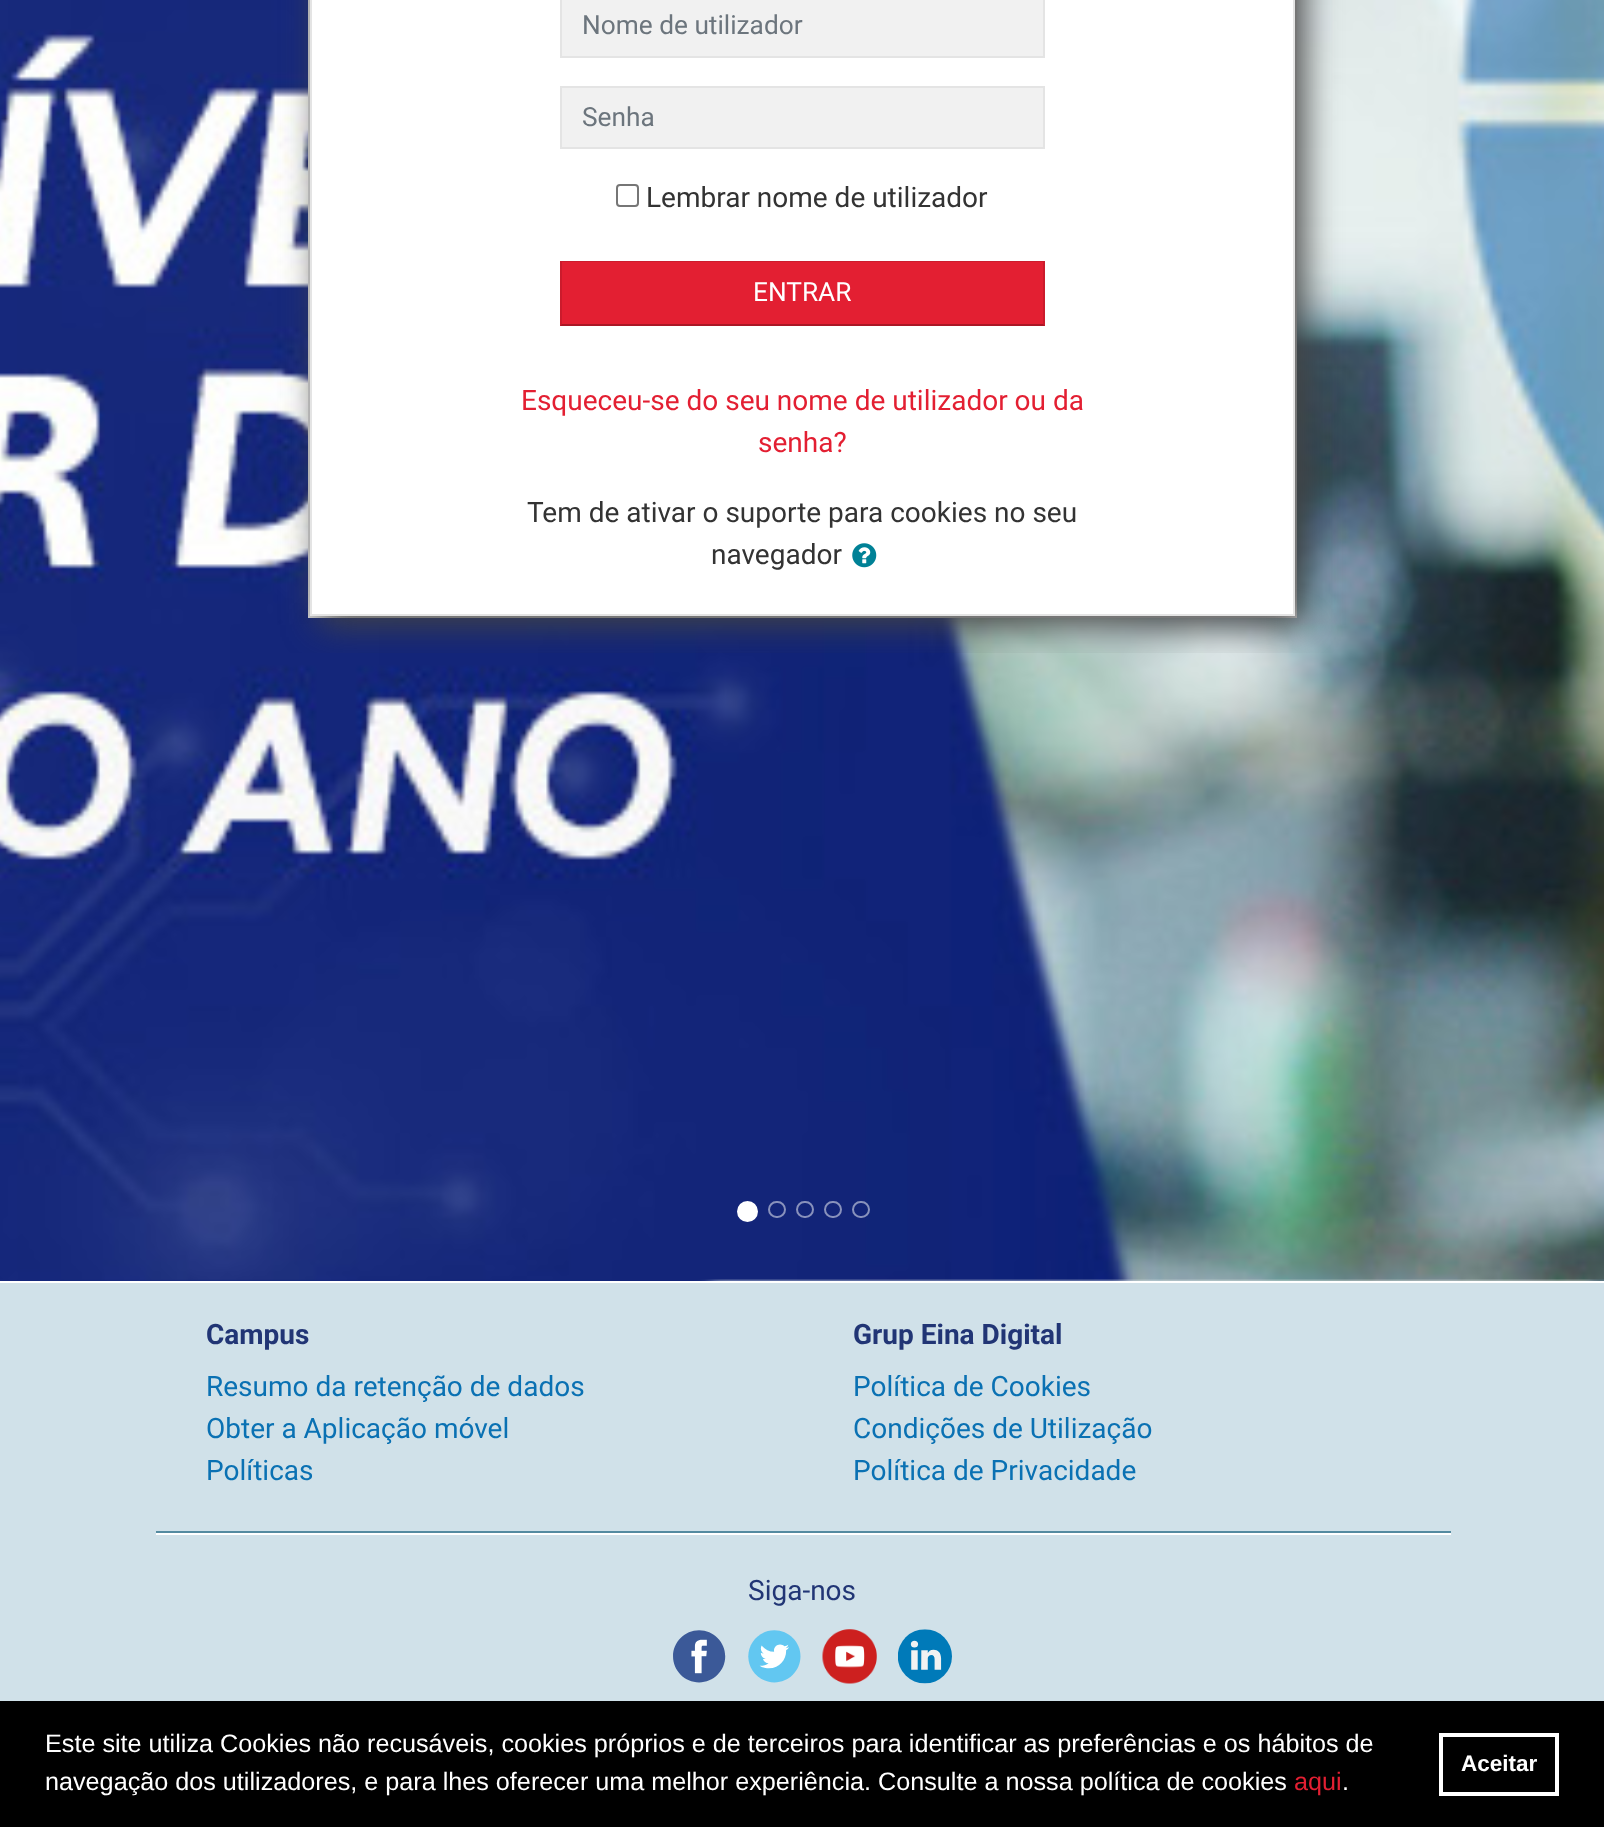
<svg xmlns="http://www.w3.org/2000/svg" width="1604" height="1827">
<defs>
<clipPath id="clip1"><rect x="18" y="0" width="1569" height="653"/></clipPath>
<clipPath id="clip2"><path d="M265 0h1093v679h-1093zm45-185h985v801h-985z" clip-rule="evenodd"/></clipPath>
</defs>
<rect width="100%" height="100%" fill="#d0e1e9"/>
<image x="0" y="0" width="1604" height="1281" href="media/1.png"/>
<circle cx="747.5" cy="1211.5" r="9.5" fill="#fff" stroke="#fff" stroke-width="2"/>
<rect x="769" y="1202" width="16" height="15" rx="7.5" fill="none" stroke="#8992bc" stroke-width="2"/>
<rect x="797" y="1202" width="16" height="15" rx="7.5" fill="none" stroke="#8992bc" stroke-width="2"/>
<rect x="825" y="1202" width="16" height="15" rx="7.5" fill="none" stroke="#8992bc" stroke-width="2"/>
<rect x="853" y="1202" width="16" height="15" rx="7.5" fill="none" stroke="#8892bc" stroke-width="2"/>
<rect x="312" width="981" height="614" fill="#fff"/>
<rect x="309" y="-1" width="987" height="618" fill="none" stroke="#dfdfdf" stroke-width="2"/>
<g clip-path="url(#clip1)">
<g clip-path="url(#clip2)">
<rect x="319" y="-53" width="985" height="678" fill="#444" filter="blur(17.5px)"/>
</g>
</g>
<rect x="311" y="-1" width="983" height="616" fill="none" stroke="#e4e4e4" stroke-width="2"/>
<rect x="561" y="-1" width="483" height="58" fill="#f1f1f1" stroke="#e4e4e4" stroke-width="2"/>
<text x="582" y="34" style="font-family:Roboto;font-size:26.25px;fill:#6c757d">Nome de utilizador</text>
<rect x="561" y="87" width="483" height="61" fill="#f1f1f1" stroke="#e4e4e4" stroke-width="2"/>
<text x="582" y="126" style="font-family:Roboto;font-size:26.25px;fill:#6c757d">Senha</text>
<rect x="617" y="185" width="21" height="21" rx="3" fill="none" stroke="#767676" stroke-width="2"/>
<text x="646" y="207" style="font-family:Roboto;font-size:28px;fill:#333">Lembrar nome de utilizador</text>
<rect x="560" y="261" width="485" height="65" fill="#e31f32"/>
<path d="M560 261h485l-2 1h-481z" fill="#cc1c2d"/>
<path d="M1045 261v65l-2-2v-62z" fill="#0000001a"/>
<path d="M1045 326h-485l2-2h481z" fill="#00000040"/>
<path d="M560 326v-65l2 1v62z" fill="#0000001a"/>
<text x="753" y="301" style="font-family:Roboto;font-size:26.25px;fill:#fff">ENTRAR</text>
<text x="521" y="410" style="font-family:Roboto;font-size:28px;fill:#e31f32">Esqueceu-se do seu nome de utilizador ou da</text>
<text x="758" y="452" style="font-family:Roboto;font-size:28px;fill:#e31f32">senha?</text>
<text x="527" y="522" style="font-family:Roboto;font-size:28px;fill:#333">Tem de ativar o suporte para cookies no seu</text>
<text x="711" y="564" style="font-family:Roboto;font-size:28px;fill:#333">navegador</text>
<image x="852" y="543" width="25" height="25" href="media/2.png"/>
<rect y="1281" width="1604" height="2" fill="#fff"/>
<text x="206" y="1344" style="font-family:Roboto;font-size:28px;font-weight:bold;fill:#213575">Campus</text>
<text x="206" y="1396" style="font-family:Roboto;font-size:28px;fill:#0a71b3">Resumo da retenção de dados</text>
<text x="206" y="1438" style="font-family:Roboto;font-size:28px;fill:#0a71b3">Obter a Aplicação móvel</text>
<text x="206" y="1480" style="font-family:Roboto;font-size:28px;fill:#0a71b3">Políticas</text>
<text x="853" y="1344" style="font-family:Roboto;font-size:28px;font-weight:bold;fill:#213575">Grup Eina Digital</text>
<text x="853" y="1396" style="font-family:Roboto;font-size:28px;fill:#0a71b3">Política de Cookies</text>
<text x="853" y="1438" style="font-family:Roboto;font-size:28px;fill:#0a71b3">Condições de Utilização</text>
<text x="853" y="1480" style="font-family:Roboto;font-size:28px;fill:#0a71b3">Política de Privacidade</text>
<rect x="156" y="1531" width="1295" height="2" fill="#548aa0"/>
<rect x="156" y="1533" width="1295" height="2" fill="#fff"/>
<text x="748" y="1600" style="font-family:Roboto;font-size:28px;fill:#213575">Siga-nos</text>
<image x="673" y="1630" width="53" height="53" href="media/3.png"/>
<image x="748" y="1630" width="53" height="53" href="media/4.png"/>
<image x="822" y="1629" width="55" height="55" href="media/5.png"/>
<image x="898" y="1629" width="54" height="55" href="media/6.png"/>
<rect y="1701" width="1604" height="126" fill="#000"/>
<text x="45" y="1752" style="font-family:Liberation Sans;font-size:25.2px;fill:#fff">Este site utiliza Cookies não recusáveis, cookies próprios e de terceiros para identificar as preferências e os hábitos de</text>
<text x="45" y="1790" style="font-family:Liberation Sans;font-size:25.2px;fill:#fff">navegação dos utilizadores, e para lhes oferecer uma melhor experiência. Consulte a nossa política de cookies</text>
<text x="1294" y="1790" style="font-family:Liberation Sans;font-size:25.2px;fill:#e31f32">aqui</text>
<text x="1342" y="1790" style="font-family:Liberation Sans;font-size:25.2px;fill:#fff">.</text>
<rect x="1441" y="1735" width="116" height="59" fill="none" stroke="#fff" stroke-width="4"/>
<text x="1461" y="1771" style="font-family:Liberation Sans;font-size:22.5px;font-weight:bold;fill:#fff">Aceitar</text>
</svg>
